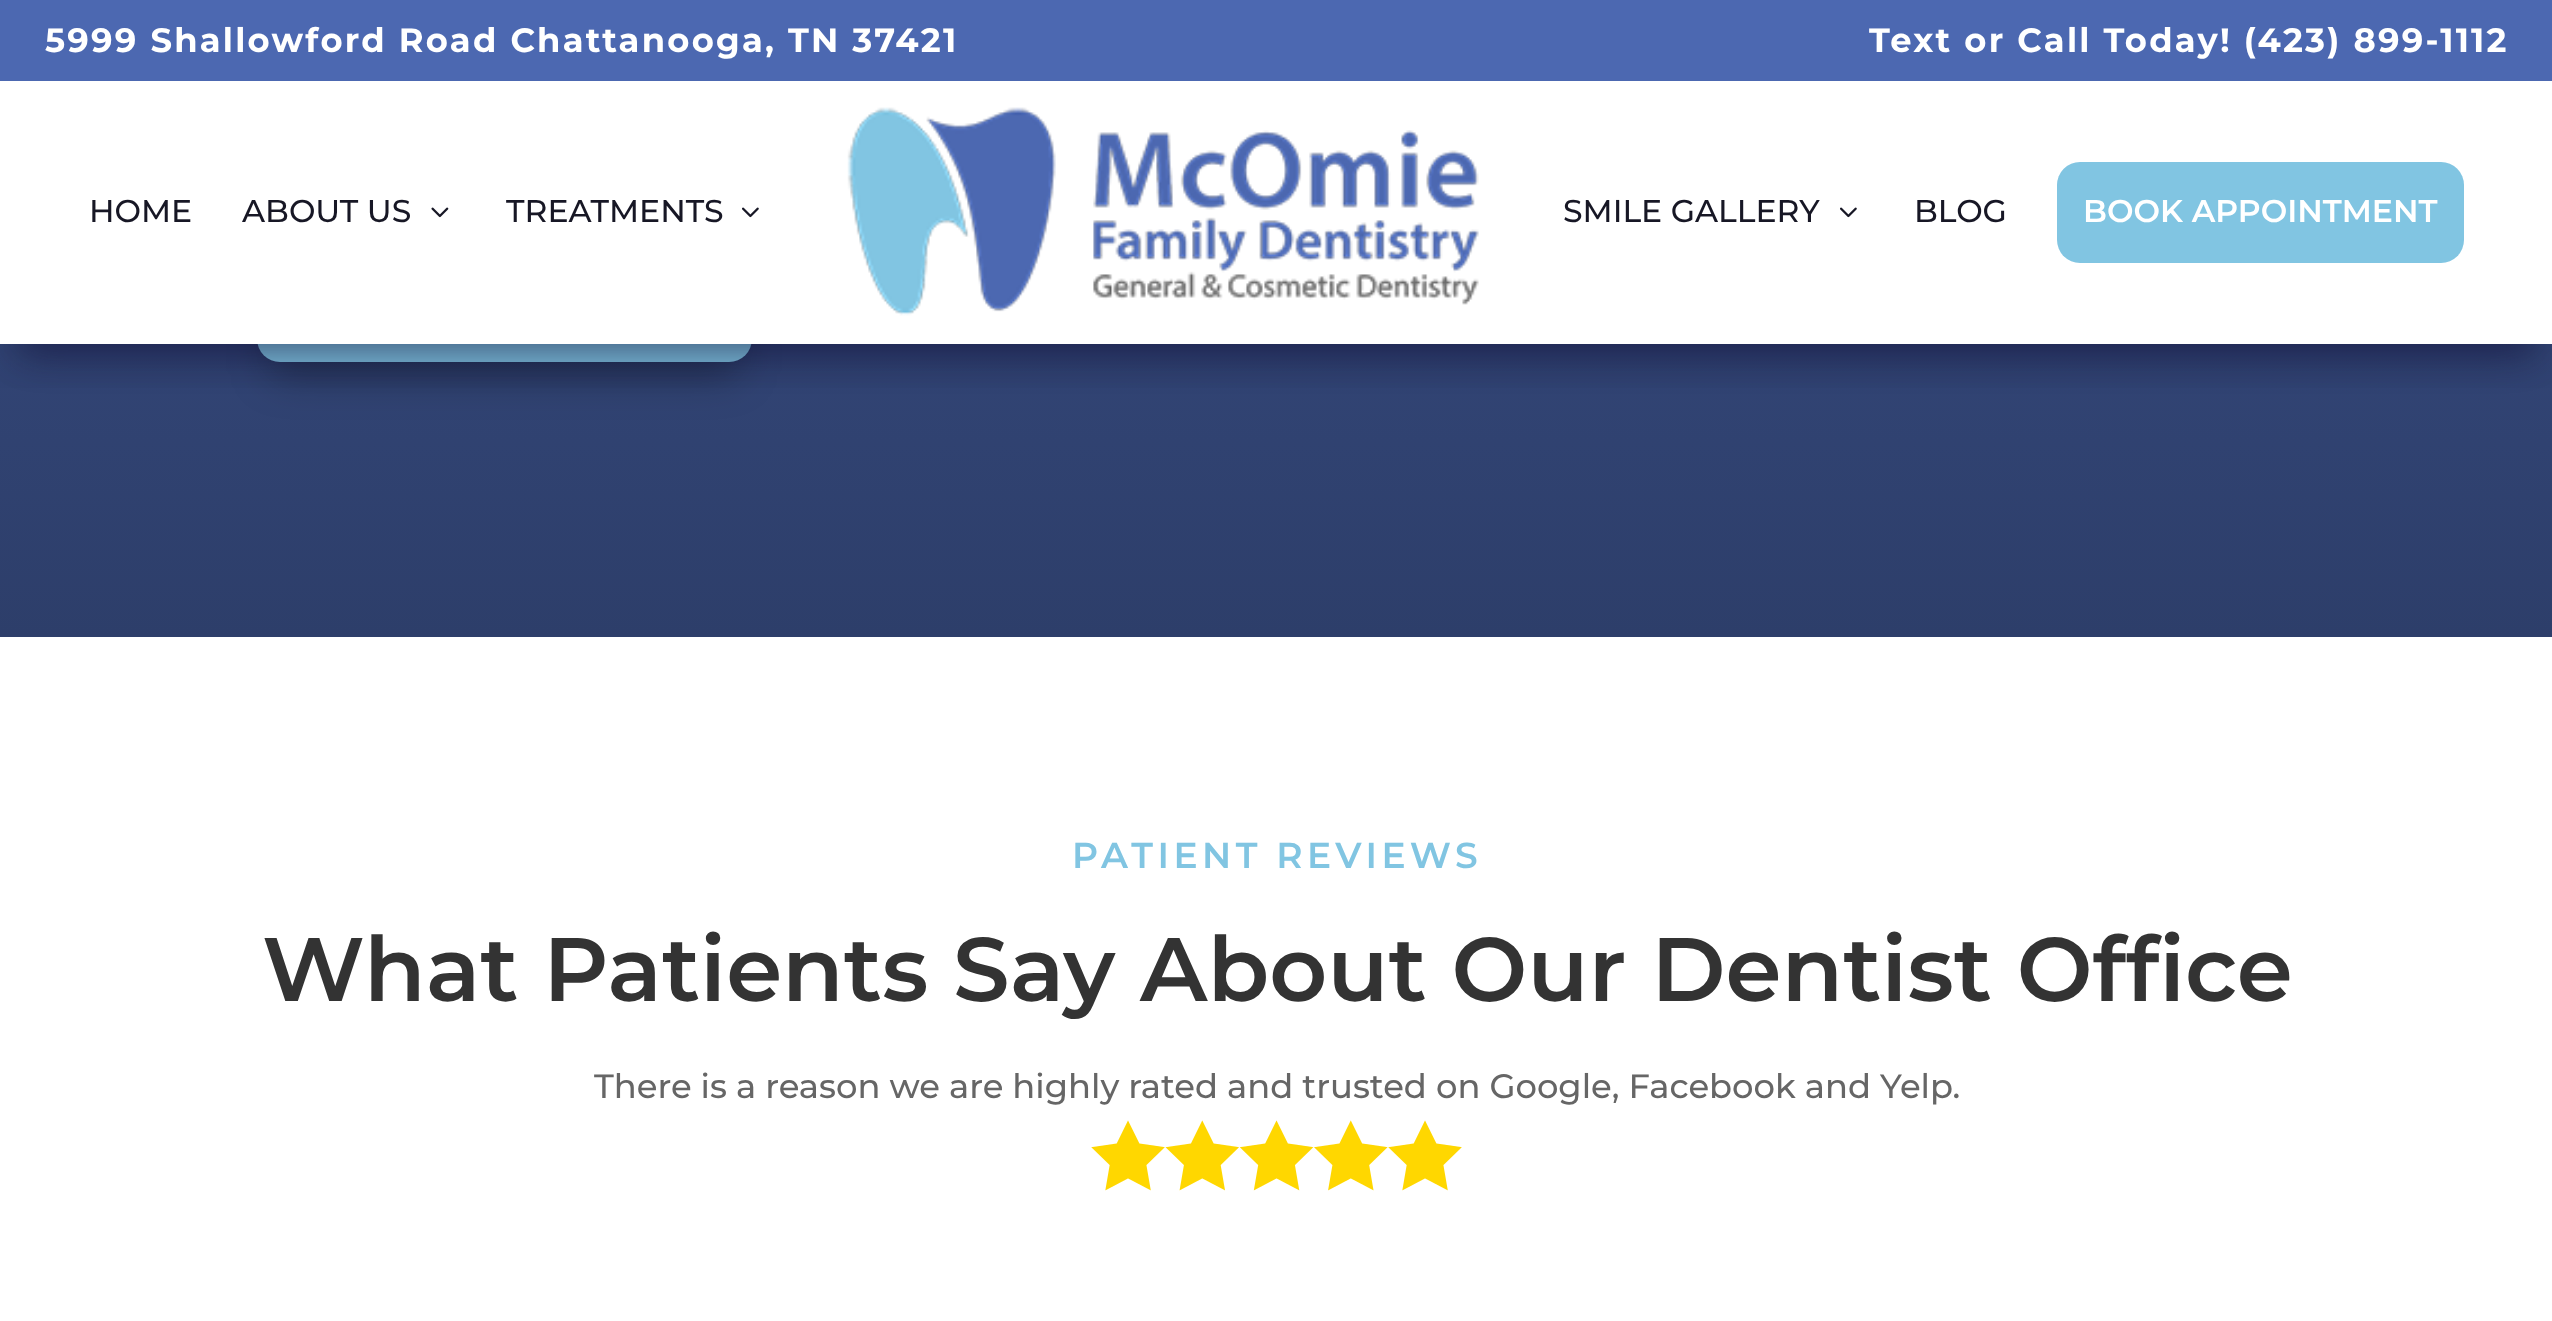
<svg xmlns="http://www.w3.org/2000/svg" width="2552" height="1321">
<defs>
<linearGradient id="g1" gradientUnits="userSpaceOnUse" x1="1277" y1="-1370" x2="1277" y2="637"><stop offset="0" stop-color="#4c68b1"/><stop offset="1" stop-color="#2d3e6a"/></linearGradient>
<clipPath id="clip1"><rect x="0" y="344" width="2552" height="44"/></clipPath>
</defs>
<rect width="100%" height="100%" fill="#fff"/>
<rect y="344" width="2552" height="293" fill="url(#g1)"/>
<rect x="270" y="275" width="468" height="101" rx="9" fill="#0000004d" filter="blur(20px)"/>
<rect x="257" y="234" width="495" height="128" rx="23" fill="#81c5e2"/>
<rect x="23" y="50" width="2508" height="299" fill="#190d6d59" filter="blur(20px)"/>
<rect y="81" width="2552" height="263" fill="#fff"/>
<rect width="2552" height="81" fill="#4c68b1"/>
<text x="45" y="52" style="font-family:'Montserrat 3';font-size:33.75px;font-weight:100;letter-spacing:2.25px;fill:#fff">5999 Shallowford Road Chattanooga, TN 37421</text>
<text x="1869" y="52" style="font-family:'Montserrat 3';font-size:33.75px;font-weight:100;letter-spacing:2.25px;fill:#fff">Text or Call Today! (423) 899-1112</text>
<g clip-path="url(#clip1)">
<rect x="14" y="122" width="2526" height="236" fill="#0000004d" filter="blur(20px)"/>
</g>
<text x="89" y="222" style="font-family:'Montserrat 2';font-size:31.5px;font-weight:100;fill:#171725">HOME</text>
<text x="242" y="222" style="font-family:'Montserrat 2';font-size:31.5px;font-weight:100;fill:#171725">ABOUT US</text>
<image x="431" y="207" width="18" height="11" href="media/1.png"/>
<text x="506" y="222" style="font-family:'Montserrat 2';font-size:31.5px;font-weight:100;fill:#171725">TREATMENTS</text>
<image x="742" y="207" width="17" height="11" href="media/2.png"/>
<image x="847" y="107" width="632" height="209" href="media/3.png"/>
<text x="1563" y="222" style="font-family:'Montserrat 2';font-size:31.5px;font-weight:100;fill:#171725">SMILE GALLERY</text>
<image x="1840" y="207" width="17" height="11" href="media/2.png"/>
<text x="1914" y="222" style="font-family:'Montserrat 2';font-size:31.5px;font-weight:100;fill:#171725">BLOG</text>
<rect x="2057" y="162" width="407" height="101" rx="23" fill="#81c5e2"/>
<text x="2083" y="222" style="font-family:Montserrat;font-size:31.5px;font-weight:100;fill:#fff">BOOK APPOINTMENT</text>
<text x="1072" y="868" style="font-family:Montserrat;font-size:36px;font-weight:100;letter-spacing:4.5px;fill:#81c5e2">PATIENT REVIEWS</text>
<text x="262" y="1001" style="font-family:Montserrat;font-size:90px;font-weight:100;fill:#333">What Patients Say About Our Dentist Office</text>
<text x="594" y="1098" style="font-family:'Montserrat 2';font-size:33.75px;font-weight:100;fill:#666">There is a reason we are highly rated and trusted on Google, Facebook and Yelp.</text>
<image x="1091" y="1120" width="371" height="71" href="media/4.png"/>
</svg>
